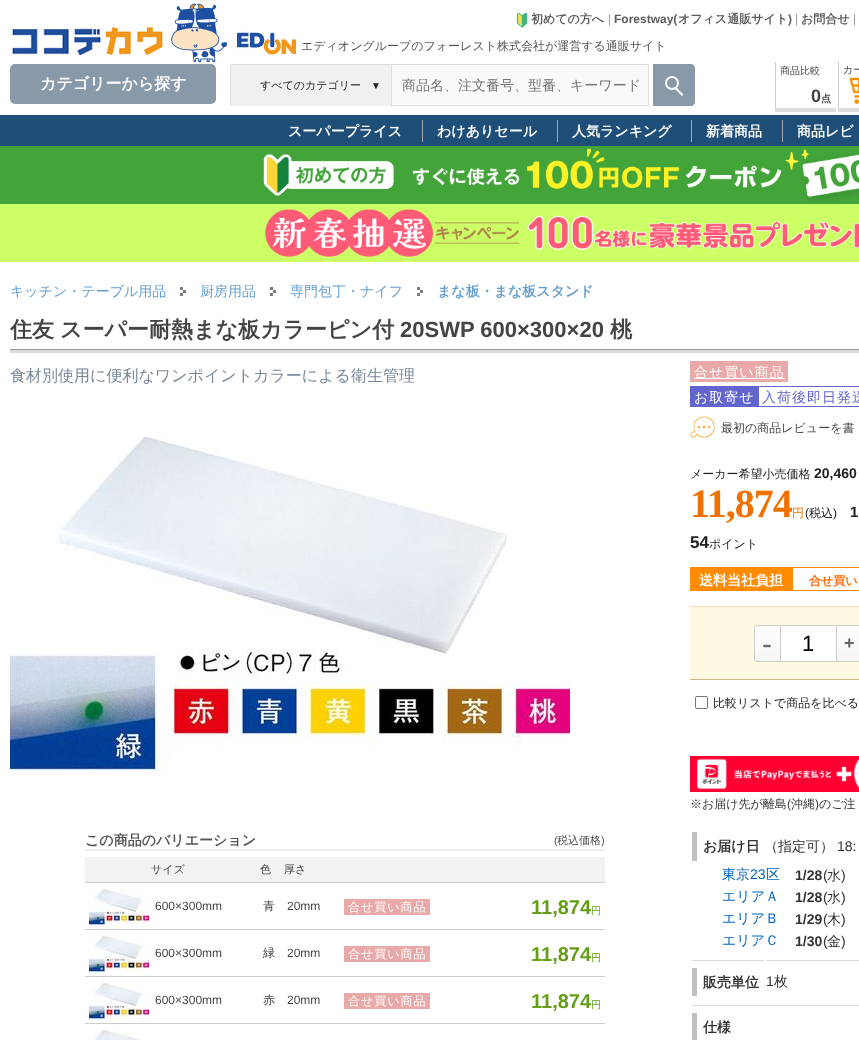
<svg xmlns="http://www.w3.org/2000/svg" width="859" height="1040">
<defs>
<clipPath id="clip1"><rect x="230" y="64" width="465" height="42"/></clipPath>
<clipPath id="clip2"><rect y="62" width="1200" height="50"/></clipPath>
<clipPath id="clip3"><path d="M757 625h23v37h-23c-1.5 0-3-1.5-3-3v-31c0-1.5 1.5-3 3-3z"/></clipPath>
<linearGradient id="g1" gradientUnits="userSpaceOnUse" x1="768" y1="626" x2="768" y2="661"><stop offset="0" stop-color="#fff"/><stop offset="1" stop-color="#f5f5f5"/></linearGradient>
<linearGradient id="g2" gradientUnits="userSpaceOnUse" x1="850" y1="626" x2="850" y2="661"><stop offset="0" stop-color="#fff"/><stop offset="1" stop-color="#f5f5f5"/></linearGradient>
</defs>
<rect width="100%" height="100%" fill="#fff"/>
<rect y="115" width="859" height="31" fill="#1f4e78"/>
<image x="171" y="3" width="56" height="60" href="media/1.png"/>
<image x="516" y="12" width="12" height="16" href="media/2.png"/>
<text x="531" y="23" style="font-family:WenQuanYi Zen Hei;font-size:12px;font-weight:bold;fill:#5c5c5c">初めての方へ</text>
<text x="608" y="23" style="font-family:Liberation Sans;font-size:12px;fill:#999">|</text>
<text x="614" y="23" style="font-family:Liberation Sans;font-size:12px;font-weight:bold;fill:#5c5c5c">Forestway(</text>
<text x="678" y="23" style="font-family:WenQuanYi Zen Hei;font-size:12px;font-weight:bold;fill:#5c5c5c">オフィス通販サイト</text>
<text x="788" y="23" style="font-family:Liberation Sans;font-size:12px;font-weight:bold;fill:#5c5c5c">)</text>
<text x="795" y="23" style="font-family:Liberation Sans;font-size:12px;fill:#999">|</text>
<text x="801" y="23" style="font-family:WenQuanYi Zen Hei;font-size:12px;font-weight:bold;fill:#5c5c5c">お問合せ</text>
<text x="853" y="23" style="font-family:Liberation Sans;font-size:12px;fill:#999">|</text>
<image x="12" y="27" width="151" height="29" href="media/3.png"/>
<image x="235" y="31" width="62" height="24" href="media/4.png"/>
<text x="301" y="50" style="font-family:WenQuanYi Zen Hei;font-size:12px;font-weight:500;fill:#555">エディオングループのフォーレスト株式会社が運営する通販サイト</text>
<rect x="10" y="64" width="206" height="40" rx="5" fill="#89a"/>
<text x="40" y="89" style="font-family:WenQuanYi Zen Hei;font-size:16px;font-weight:bold;fill:#fff">カテゴリーから探す</text>
<rect x="392" y="65" width="256" height="40" fill="#f9f9f9"/>
<rect x="390.5" y="64.5" width="258" height="41" fill="none" stroke="#ddd"/>
<rect x="231" y="65" width="160" height="41" fill="#f0f0f0"/>
<g clip-path="url(#clip1)">
<rect x="230.5" y="64.5" width="161" height="42" fill="none" stroke="#ddd"/>
</g>
<text x="260" y="89" style="font-family:WenQuanYi Zen Hei;font-size:11px;font-weight:500;fill:#222">すべてのカテゴリー</text>
<text x="371" y="89" style="font-family:Liberation Sans;font-size:10px;fill:#222">▼</text>
<text x="402" y="90" style="font-family:WenQuanYi Zen Hei;font-size:14px;font-weight:500;fill:#757575">商品名、注文番号、型番、キーワード</text>
<path d="M653 64h38c2 0 4 2 4 4v34c0 2-2 4-4 4h-38z" fill="#89a"/>
<circle cx="672" cy="83" r="6" fill="none" stroke="#fff" stroke-width="2"/>
<path d="M675 87.5c1.5-1 4 2.5 4.5 3.5c1 .5 4.5 3 3.5 4.5c-1.5 1-4-2.5-4.5-3.5c-1-.5-4.5-3-3.5-4.5z" fill="#fff"/>
<g clip-path="url(#clip2)">
<path d="M836 116h-61l1-8h60z" fill="#ddd"/>
<path d="M775 116v-54h1v46z" fill="#ccc"/>
</g>
<text x="780" y="74" style="font-family:WenQuanYi Zen Hei;font-size:10px;font-weight:500;fill:#444">商品比較</text>
<text x="811" y="102" style="font-family:Liberation Sans;font-size:18px;font-weight:bold;fill:#444">0</text>
<text x="821" y="102" style="font-family:WenQuanYi Zen Hei;font-size:10px;font-weight:bold;fill:#444">点</text>
<g clip-path="url(#clip2)">
<path d="M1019 116h-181l1-8h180z" fill="#ddd"/>
<path d="M838 116v-54h1v46z" fill="#ccc"/>
</g>
<text x="843" y="73" style="font-family:WenQuanYi Zen Hei;font-size:10px;font-weight:500;fill:#444">カー</text>
<image x="849" y="77" width="10" height="27" href="media/5.png"/>
<rect x="422" y="120" width="1" height="22" fill="#aaa7a7"/>
<text x="288" y="136" style="font-family:WenQuanYi Zen Hei;font-size:14px;font-weight:bold;fill:#fff">スーパープライス</text>
<rect x="557" y="120" width="1" height="22" fill="#aaa7a7"/>
<text x="437" y="136" style="font-family:WenQuanYi Zen Hei;font-size:14px;font-weight:bold;fill:#fff">わけありセール</text>
<rect x="691" y="120" width="1" height="22" fill="#aaa7a7"/>
<text x="572" y="136" style="font-family:WenQuanYi Zen Hei;font-size:14px;font-weight:bold;fill:#fff">人気ランキング</text>
<rect x="782" y="120" width="1" height="22" fill="#aaa7a7"/>
<text x="706" y="136" style="font-family:WenQuanYi Zen Hei;font-size:14px;font-weight:bold;fill:#fff">新着商品</text>
<text x="797" y="136" style="font-family:WenQuanYi Zen Hei;font-size:14px;font-weight:bold;fill:#fff">商品レビ</text>
<rect y="146" width="859" height="58" fill="#42a439"/>
<image x="263" y="148" width="596" height="53" href="media/6.png"/>
<rect y="204" width="859" height="58" fill="#cf6"/>
<image x="265" y="209" width="594" height="48" href="media/7.png"/>
<text x="10" y="296" style="font-family:WenQuanYi Zen Hei;font-size:14px;font-weight:500;fill:#639ece">キッチン・テーブル用品</text>
<image x="180" y="287" width="6" height="9" href="media/8.png"/>
<text x="200" y="296" style="font-family:WenQuanYi Zen Hei;font-size:14px;font-weight:500;fill:#639ece">厨房用品</text>
<image x="270" y="287" width="6" height="9" href="media/8.png"/>
<text x="290" y="296" style="font-family:WenQuanYi Zen Hei;font-size:14px;font-weight:500;fill:#639ece">専門包丁・ナイフ</text>
<image x="417" y="287" width="6" height="9" href="media/8.png"/>
<text x="437" y="296" style="font-family:WenQuanYi Zen Hei;font-size:14px;font-weight:bold;fill:#639ece">まな板・まな板スタンド</text>
<rect x="10" y="350" width="849" height="3" fill="#dcdcdc"/>
<rect x="10" y="349" width="849" height="1" fill="#999"/>
<text x="10" y="337" style="font-family:WenQuanYi Zen Hei;font-size:22px;font-weight:bold;fill:#444">住友</text>
<text x="60" y="337" style="font-family:WenQuanYi Zen Hei;font-size:22px;font-weight:bold;fill:#444">スーパー耐熱まな板カラーピン付</text>
<text x="400" y="337" style="font-family:Liberation Sans;font-size:22px;font-weight:bold;fill:#444">20SWP 600×300×20</text>
<text x="610" y="337" style="font-family:WenQuanYi Zen Hei;font-size:22px;font-weight:bold;fill:#444">桃</text>
<text x="10" y="381" style="font-family:WenQuanYi Zen Hei;font-size:16px;font-weight:500;fill:#789">食材別使用に便利なワンポイントカラーによる衛生管理</text>
<image x="10" y="435" width="560" height="342" href="media/9.png"/>
<rect x="85" y="849" width="520" height="2" fill="#eee"/>
<text x="85" y="845" style="font-family:WenQuanYi Zen Hei;font-size:14px;font-weight:bold;fill:#555">この商品のバリエーション</text>
<text x="554" y="844" style="font-family:Liberation Sans;font-size:11px;fill:#555">(</text>
<text x="557" y="844" style="font-family:WenQuanYi Zen Hei;font-size:11px;font-weight:500;fill:#555">税込価格</text>
<text x="601" y="844" style="font-family:Liberation Sans;font-size:11px;fill:#555">)</text>
<rect x="85" y="857" width="520" height="25" fill="#f2f2f2"/>
<rect x="85" y="882" width="520" height="1" fill="#ccc"/>
<text x="151" y="873" style="font-family:WenQuanYi Zen Hei;font-size:11px;font-weight:500;fill:#444">サイズ</text>
<text x="260" y="873" style="font-family:WenQuanYi Zen Hei;font-size:11px;font-weight:500;fill:#444">色</text>
<text x="284" y="873" style="font-family:WenQuanYi Zen Hei;font-size:11px;font-weight:500;fill:#444">厚さ</text>
<rect x="85" y="929" width="520" height="1" fill="#ccc"/>
<image x="89" y="888" width="60" height="41" href="media/10.png"/>
<text x="155" y="910" style="font-family:Liberation Sans;font-size:12px;fill:#444">600×300mm</text>
<text x="263" y="910" style="font-family:WenQuanYi Zen Hei;font-size:12px;font-weight:500;fill:#444">青</text>
<text x="287" y="910" style="font-family:Liberation Sans;font-size:12px;fill:#444">20mm</text>
<rect x="344" y="899" width="86" height="16" fill="#e9a9a9"/>
<text x="348" y="911" style="font-family:WenQuanYi Zen Hei;font-size:12px;font-weight:500;letter-spacing:1px;fill:#fff">合せ買い商品</text>
<text x="531" y="914" style="font-family:Liberation Sans;font-size:20px;font-weight:bold;fill:#659e18">11,874</text>
<text x="591" y="914" style="font-family:WenQuanYi Zen Hei;font-size:10px;font-weight:500;fill:#659e18">円</text>
<rect x="85" y="976" width="520" height="1" fill="#ccc"/>
<image x="89" y="935" width="60" height="41" href="media/10.png"/>
<text x="155" y="957" style="font-family:Liberation Sans;font-size:12px;fill:#444">600×300mm</text>
<text x="263" y="957" style="font-family:WenQuanYi Zen Hei;font-size:12px;font-weight:500;fill:#444">緑</text>
<text x="287" y="957" style="font-family:Liberation Sans;font-size:12px;fill:#444">20mm</text>
<rect x="344" y="946" width="86" height="16" fill="#e9a9a9"/>
<text x="348" y="958" style="font-family:WenQuanYi Zen Hei;font-size:12px;font-weight:500;letter-spacing:1px;fill:#fff">合せ買い商品</text>
<text x="531" y="961" style="font-family:Liberation Sans;font-size:20px;font-weight:bold;fill:#659e18">11,874</text>
<text x="591" y="961" style="font-family:WenQuanYi Zen Hei;font-size:10px;font-weight:500;fill:#659e18">円</text>
<rect x="85" y="1023" width="520" height="1" fill="#ccc"/>
<image x="89" y="982" width="60" height="41" href="media/10.png"/>
<text x="155" y="1004" style="font-family:Liberation Sans;font-size:12px;fill:#444">600×300mm</text>
<text x="263" y="1004" style="font-family:WenQuanYi Zen Hei;font-size:12px;font-weight:500;fill:#444">赤</text>
<text x="287" y="1004" style="font-family:Liberation Sans;font-size:12px;fill:#444">20mm</text>
<rect x="344" y="993" width="86" height="16" fill="#e9a9a9"/>
<text x="348" y="1005" style="font-family:WenQuanYi Zen Hei;font-size:12px;font-weight:500;letter-spacing:1px;fill:#fff">合せ買い商品</text>
<text x="531" y="1008" style="font-family:Liberation Sans;font-size:20px;font-weight:bold;fill:#659e18">11,874</text>
<text x="591" y="1008" style="font-family:WenQuanYi Zen Hei;font-size:10px;font-weight:500;fill:#659e18">円</text>
<image x="95" y="1029" width="46" height="11" href="media/11.png"/>
<rect x="690" y="361" width="98" height="21" fill="#e9a9a9"/>
<rect x="694" y="378" width="91" height="1" fill="#fff"/>
<text x="694" y="377" style="font-family:WenQuanYi Zen Hei;font-size:14px;font-weight:500;letter-spacing:1px;fill:#fff">合せ買い商品</text>
<rect x="690" y="386" width="68" height="21" fill="#6365ce"/>
<text x="694" y="402" style="font-family:WenQuanYi Zen Hei;font-size:14px;font-weight:500;letter-spacing:1px;fill:#fff">お取寄せ</text>
<rect x="758.5" y="386.5" width="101" height="20" fill="none" stroke="#6365ce"/>
<text x="762" y="402" style="font-family:WenQuanYi Zen Hei;font-size:14px;font-weight:500;letter-spacing:1px;fill:#6365ce">入荷後即日発送</text>
<image x="690" y="416" width="25" height="22" href="media/12.png"/>
<text x="721" y="432" style="font-family:WenQuanYi Zen Hei;font-size:12px;font-weight:500;fill:#444">最初の商品レビューを書</text>
<text x="690" y="478" style="font-family:WenQuanYi Zen Hei;font-size:12px;font-weight:500;fill:#222">メーカー希望小売価格</text>
<text x="814" y="478" style="font-family:Liberation Sans;font-size:14px;font-weight:bold;fill:#222">20,460</text>
<text x="690" y="517" style="font-family:Liberation Serif;font-size:40px;font-weight:bold;letter-spacing:-1px;fill:#f07100">11,874</text>
<text x="792" y="517" style="font-family:WenQuanYi Zen Hei;font-size:12px;font-weight:500;letter-spacing:-2px;fill:#f07100">円</text>
<text x="805" y="517" style="font-family:Liberation Sans;font-size:12px;fill:#222">(</text>
<text x="809" y="517" style="font-family:WenQuanYi Zen Hei;font-size:12px;font-weight:500;fill:#222">税込</text>
<text x="833" y="517" style="font-family:Liberation Sans;font-size:12px;fill:#222">)</text>
<text x="850" y="517" style="font-family:Liberation Sans;font-size:15px;font-weight:bold;fill:#222">1</text>
<text x="690" y="548" style="font-family:Liberation Sans;font-size:17px;font-weight:bold;fill:#222">54</text>
<text x="709" y="548" style="font-family:WenQuanYi Zen Hei;font-size:12px;font-weight:500;fill:#222">ポイント</text>
<rect x="690" y="567" width="102" height="24" fill="#ff8c00"/>
<text x="699" y="585" style="font-family:WenQuanYi Zen Hei;font-size:14px;font-weight:bold;fill:#fff">送料当社負担</text>
<rect x="792.5" y="567.5" width="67" height="23" fill="none" stroke="#ff8c00"/>
<text x="809" y="585" style="font-family:WenQuanYi Zen Hei;font-size:12px;font-weight:bold;fill:#f60">合せ買い</text>
<rect x="690" y="607" width="169" height="72" fill="#fff9e1"/>
<rect x="690" y="606" width="169" height="1" fill="#f5deb3"/>
<rect x="690" y="679" width="169" height="1" fill="#d2b48c"/>
<g clip-path="url(#clip3)">
<rect x="754" y="626" width="26" height="35" fill="url(#g1)"/>
</g>
<path d="M757 625h23v37h-23c-1.5 0-3-1.5-3-3v-31c0-1.5 1.5-3 3-3zm0 1h23v35h-23c-1 0-2-1-2-2v-31c0-1 1-2 2-2z" fill="#ccc" fill-rule="evenodd"/>
<text x="762" y="654" style="font-family:Liberation Sans;font-size:30px;letter-spacing:1px;fill:#666">-</text>
<rect x="780.5" y="625.5" width="56" height="36" fill="#fff" stroke="#ccc"/>
<text x="802" y="651" style="font-family:Liberation Sans;font-size:22px;fill:#000">1</text>
<rect x="837" y="626" width="22" height="35" fill="url(#g2)"/>
<path d="M837 625h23c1.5 0 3 1.5 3 3v31c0 1.5-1.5 3-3 3h-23zm0 1h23c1 0 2 1 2 2v31c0 1-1 2-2 2h-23z" fill="#ccc" fill-rule="evenodd"/>
<text x="844" y="649" style="font-family:Liberation Sans;font-size:18px;font-weight:bold;letter-spacing:1px;fill:#666">+</text>
<rect x="695.5" y="696.5" width="12" height="12" rx="1.5" fill="none" stroke="#767676"/>
<text x="713" y="707" style="font-family:WenQuanYi Zen Hei;font-size:12px;font-weight:500;fill:#222">比較リストで商品を比べる</text>
<image x="690" y="756" width="169" height="36" href="media/13.png"/>
<text x="690" y="808" style="font-family:WenQuanYi Zen Hei;font-size:12px;font-weight:500;fill:#333">※お届け先が離島</text>
<text x="787" y="808" style="font-family:Liberation Sans;font-size:12px;fill:#333">(</text>
<text x="791" y="808" style="font-family:WenQuanYi Zen Hei;font-size:12px;font-weight:500;fill:#333">沖縄</text>
<text x="815" y="808" style="font-family:Liberation Sans;font-size:12px;fill:#333">)</text>
<text x="819" y="808" style="font-family:WenQuanYi Zen Hei;font-size:12px;font-weight:500;fill:#333">のご注</text>
<rect x="692" y="832" width="5" height="29" fill="#c0c0c0"/>
<text x="703" y="851" style="font-family:WenQuanYi Zen Hei;font-size:14px;font-weight:bold;fill:#333">お届け日</text>
<text x="764" y="851" style="font-family:WenQuanYi Zen Hei;font-size:14px;font-weight:500;fill:#333">（指定可）</text>
<text x="837" y="851" style="font-family:Liberation Sans;font-size:14px;fill:#333">18:</text>
<text x="722" y="879" style="font-family:WenQuanYi Zen Hei;font-size:14px;font-weight:500;fill:#0066c0">東京</text>
<text x="750" y="879" style="font-family:Liberation Sans;font-size:14px;fill:#0066c0">23</text>
<text x="766" y="879" style="font-family:WenQuanYi Zen Hei;font-size:14px;font-weight:500;fill:#0066c0">区</text>
<text x="795" y="880" style="font-family:Liberation Sans;font-size:14px;font-weight:bold;fill:#333">1/28</text>
<text x="823" y="880" style="font-family:Liberation Sans;font-size:14px;fill:#333">(</text>
<text x="827" y="880" style="font-family:WenQuanYi Zen Hei;font-size:14px;font-weight:500;fill:#333">水</text>
<text x="841" y="880" style="font-family:Liberation Sans;font-size:14px;fill:#333">)</text>
<text x="722" y="901" style="font-family:WenQuanYi Zen Hei;font-size:14px;font-weight:500;fill:#0066c0">エリアＡ</text>
<text x="795" y="902" style="font-family:Liberation Sans;font-size:14px;font-weight:bold;fill:#333">1/28</text>
<text x="823" y="902" style="font-family:Liberation Sans;font-size:14px;fill:#333">(</text>
<text x="827" y="902" style="font-family:WenQuanYi Zen Hei;font-size:14px;font-weight:500;fill:#333">水</text>
<text x="841" y="902" style="font-family:Liberation Sans;font-size:14px;fill:#333">)</text>
<text x="722" y="923" style="font-family:WenQuanYi Zen Hei;font-size:14px;font-weight:500;fill:#0066c0">エリアＢ</text>
<text x="795" y="924" style="font-family:Liberation Sans;font-size:14px;font-weight:bold;fill:#333">1/29</text>
<text x="823" y="924" style="font-family:Liberation Sans;font-size:14px;fill:#333">(</text>
<text x="827" y="924" style="font-family:WenQuanYi Zen Hei;font-size:14px;font-weight:500;fill:#333">木</text>
<text x="841" y="924" style="font-family:Liberation Sans;font-size:14px;fill:#333">)</text>
<text x="722" y="945" style="font-family:WenQuanYi Zen Hei;font-size:14px;font-weight:500;fill:#0066c0">エリアＣ</text>
<text x="795" y="946" style="font-family:Liberation Sans;font-size:14px;font-weight:bold;fill:#333">1/30</text>
<text x="823" y="946" style="font-family:Liberation Sans;font-size:14px;fill:#333">(</text>
<text x="827" y="946" style="font-family:WenQuanYi Zen Hei;font-size:14px;font-weight:500;fill:#333">金</text>
<text x="841" y="946" style="font-family:Liberation Sans;font-size:14px;fill:#333">)</text>
<rect x="692" y="960" width="72" height="1" fill="#ddd"/>
<rect x="692" y="968" width="5" height="28" fill="#c0c0c0"/>
<text x="703" y="987" style="font-family:WenQuanYi Zen Hei;font-size:14px;font-weight:bold;fill:#333">販売単位</text>
<rect x="766" y="960" width="93" height="1" fill="#ddd"/>
<text x="766" y="986" style="font-family:Liberation Sans;font-size:14px;fill:#333">1</text>
<text x="774" y="986" style="font-family:WenQuanYi Zen Hei;font-size:14px;font-weight:500;fill:#333">枚</text>
<rect x="692" y="1005" width="167" height="1" fill="#ddd"/>
<rect x="692" y="1013" width="5" height="27" fill="#c0c0c0"/>
<text x="703" y="1032" style="font-family:WenQuanYi Zen Hei;font-size:14px;font-weight:bold;fill:#333">仕様</text>
</svg>
